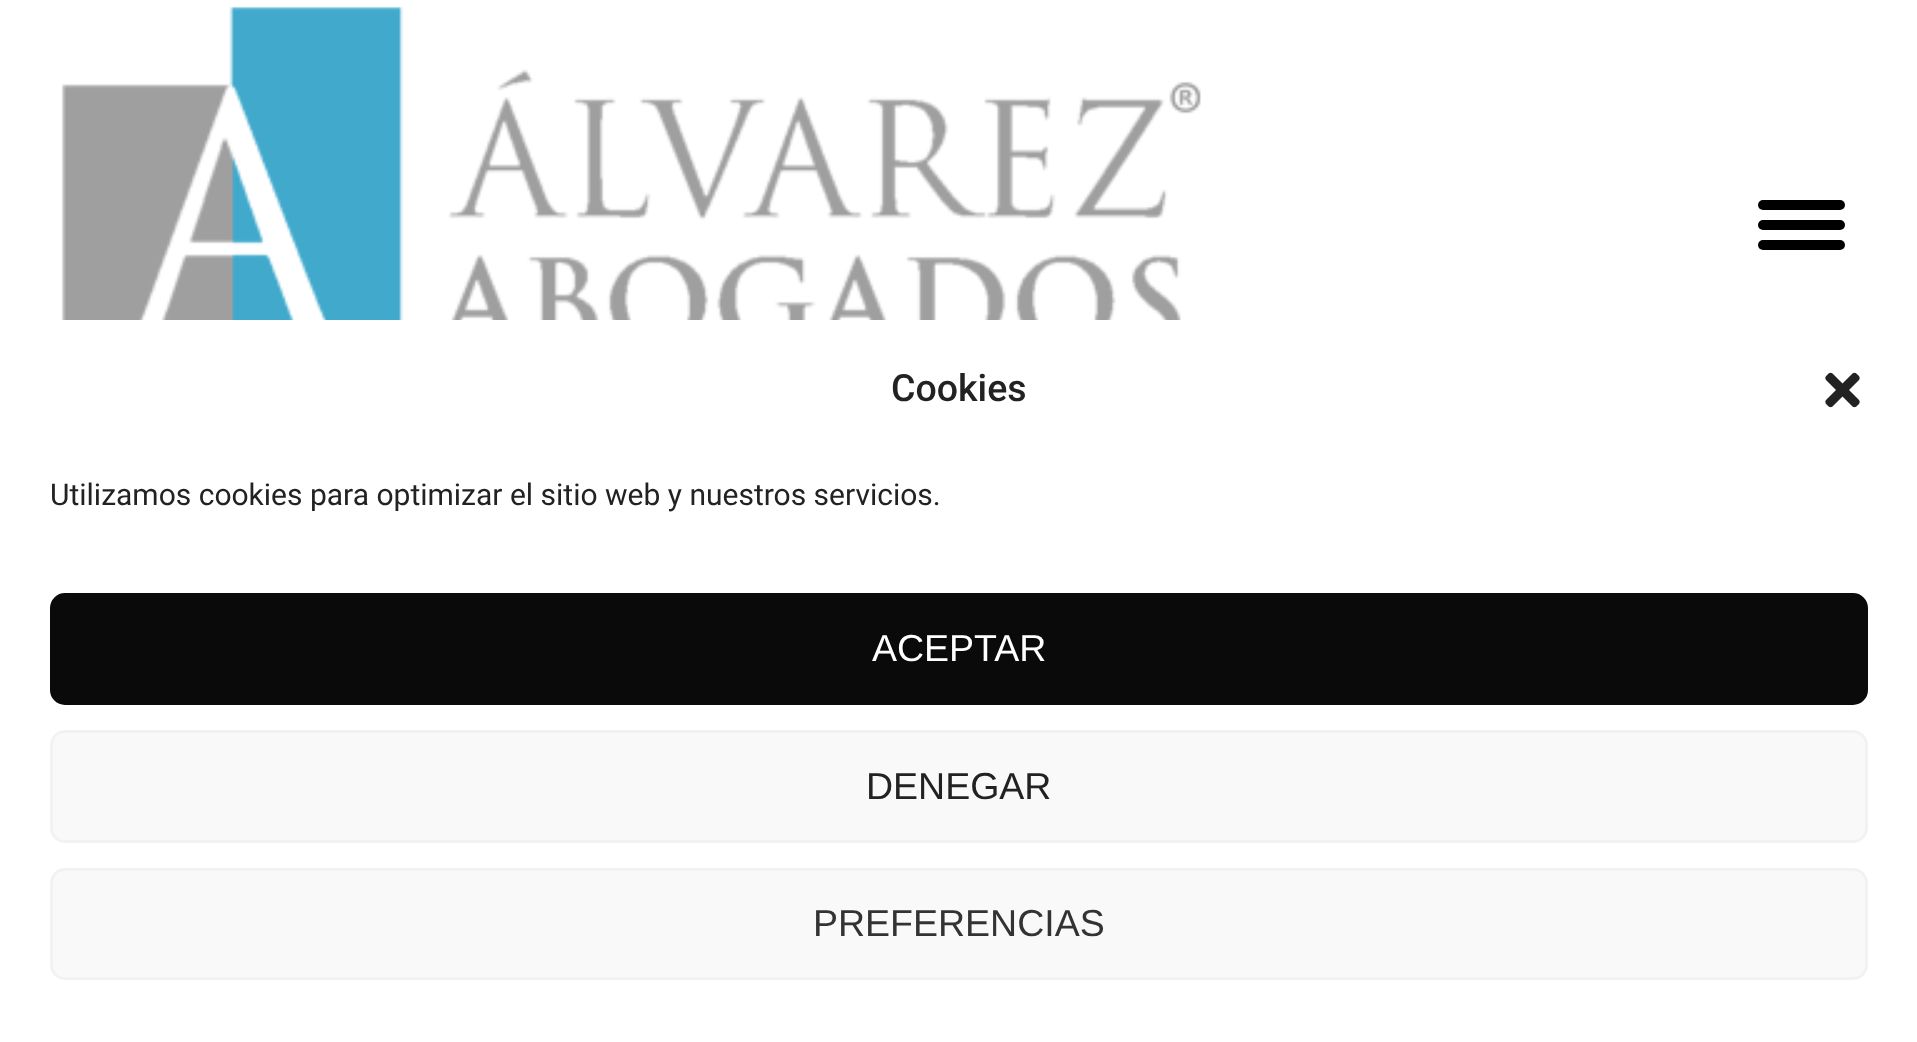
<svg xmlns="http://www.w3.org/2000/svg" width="1917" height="1042">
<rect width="100%" height="100%" fill="#fff"/>
<image x="61" y="6" width="1140" height="314" href="media/1.png"/>
<rect x="1758" y="200" width="87" height="10" rx="5" fill="#000"/>
<rect x="1758" y="220" width="87" height="10" rx="5" fill="#000"/>
<rect x="1758" y="240" width="87" height="10" rx="5" fill="#000"/>
<text x="891" y="401" style="font-family:Roboto;font-size:37.5px;font-weight:500;fill:#222">Cookies</text>
<image x="1825" y="372" width="35" height="36" href="media/2.png"/>
<text x="50" y="505" style="font-family:Roboto;font-size:30px;fill:#222">Utilizamos cookies para optimizar el sitio web y nuestros servicios.</text>
<rect x="51.5" y="594.5" width="1815" height="109" rx="13.5" fill="#0a0a0a" stroke="#0a0a0a" stroke-width="3"/>
<text x="872" y="661" style="font-family:Liberation Sans;font-size:37.5px;fill:#fff">ACEPTAR</text>
<rect x="51.5" y="731.5" width="1815" height="110" rx="13.5" fill="#f9f9f9" stroke="#f2f2f2" stroke-width="3"/>
<text x="866" y="799" style="font-family:Liberation Sans;font-size:37.5px;fill:#222">DENEGAR</text>
<rect x="51.5" y="869.5" width="1815" height="109" rx="13.5" fill="#f9f9f9" stroke="#f2f2f2" stroke-width="3"/>
<text x="813" y="936" style="font-family:Liberation Sans;font-size:37.5px;fill:#333">PREFERENCIAS</text>
</svg>
